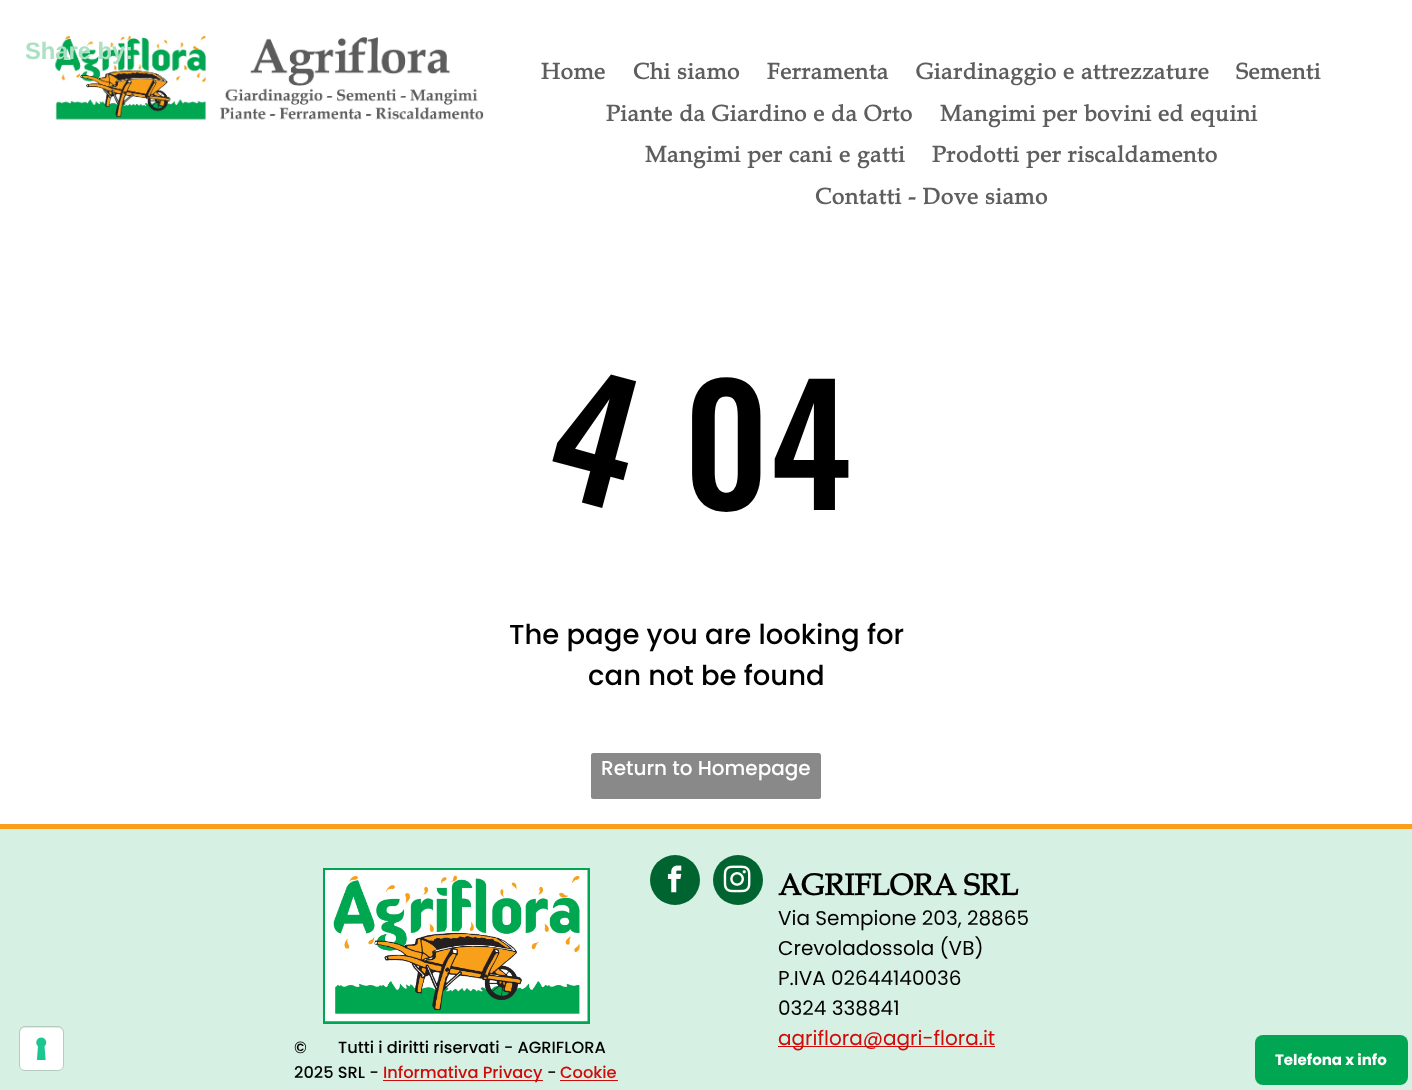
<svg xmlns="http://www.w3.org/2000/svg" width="1412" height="1090">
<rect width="100%" height="100%" fill="#f99f1b"/>
<rect width="1412" height="824" fill="#fff"/>
<image x="54" y="35" width="430" height="85" href="media/2.png"/>
<text x="25" y="59" style="font-family:Liberation Sans;font-size:23.75px;font-weight:bold;fill:#abe0c2">Share by:</text>
<rect y="829" width="1412" height="261" fill="#d6f0e3"/>
<rect x="19.5" y="1026.5" width="44" height="44" rx="5.5" fill="none" stroke="#b6ccc1"/>
<rect x="20" y="1028" width="43" height="42" rx="5" fill="#fff"/>
<image x="36" y="1037" width="11" height="23" href="media/1.png"/>
<text x="541" y="79" style="font-family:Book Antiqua;font-size:22.5px;font-weight:bold;letter-spacing:0.7px;fill:#5e5e5e">Home</text>
<text x="633" y="79" style="font-family:Book Antiqua;font-size:22.5px;font-weight:bold;letter-spacing:0.7px;fill:#5e5e5e">Chi siamo</text>
<text x="767" y="79" style="font-family:Book Antiqua;font-size:22.5px;font-weight:bold;letter-spacing:0.7px;fill:#5e5e5e">Ferramenta</text>
<text x="916" y="79" style="font-family:Book Antiqua;font-size:22.5px;font-weight:bold;letter-spacing:0.7px;fill:#5e5e5e">Giardinaggio e attrezzature</text>
<text x="1236" y="79" style="font-family:Book Antiqua;font-size:22.5px;font-weight:bold;letter-spacing:0.7px;fill:#5e5e5e">Sementi</text>
<text x="606" y="121" style="font-family:Book Antiqua;font-size:22.5px;font-weight:bold;letter-spacing:0.7px;fill:#5e5e5e">Piante da Giardino e da Orto</text>
<text x="940" y="121" style="font-family:Book Antiqua;font-size:22.5px;font-weight:bold;letter-spacing:0.7px;fill:#5e5e5e">Mangimi per bovini ed equini</text>
<text x="645" y="162" style="font-family:Book Antiqua;font-size:22.5px;font-weight:bold;letter-spacing:0.7px;fill:#5e5e5e">Mangimi per cani e gatti</text>
<text x="932" y="162" style="font-family:Book Antiqua;font-size:22.5px;font-weight:bold;letter-spacing:0.7px;fill:#5e5e5e">Prodotti per riscaldamento</text>
<text x="815" y="204" style="font-family:Book Antiqua;font-size:22.5px;font-weight:bold;letter-spacing:0.7px;fill:#5e5e5e">Contatti - Dove siamo</text>
<text x="539" y="491" transform="rotate(15 539 491)" style="font-family:Oswald;font-size:162px;font-weight:500;fill:#000">4</text>
<text x="683" y="510" style="font-family:Oswald;font-size:162px;font-weight:500;fill:#000">04</text>
<text x="509" y="644" style="font-family:Poppins;font-size:27.5px;font-weight:500;fill:#000">The page you are looking for</text>
<text x="588" y="685" style="font-family:Poppins;font-size:27.5px;font-weight:500;fill:#000">can not be found</text>
<rect x="591" y="753" width="230" height="46" rx="2.5" fill="#898989"/>
<text x="601" y="775" style="font-family:Poppins;font-size:20px;font-weight:500;fill:#fff">Return to Homepage</text>
<circle cx="675" cy="880" r="25" fill="#006430"/>
<image x="667" y="865" width="15" height="28" href="media/3.png"/>
<circle cx="738" cy="880" r="25" fill="#006430"/>
<image x="723" y="865" width="28" height="28" href="media/4.png"/>
<text x="778" y="895" style="font-family:Book Antiqua;font-size:30px;font-weight:bold;fill:#000">AGRIFLORA SRL</text>
<text x="778" y="925" style="font-family:Poppins;font-size:20px;fill:#000">Via Sempione 203, 28865</text>
<text x="778" y="955" style="font-family:Poppins;font-size:20px;fill:#000">Crevoladossola (VB)</text>
<text x="778" y="985" style="font-family:Poppins;font-size:20px;fill:#000">P.IVA 02644140036</text>
<text x="778" y="1015" style="font-family:Poppins;font-size:20px;fill:#000">0324 338841</text>
<rect x="778" y="1046" width="217" height="1" fill="#d10a0a"/>
<text x="778" y="1045" style="font-family:Poppins;font-size:20px;fill:#d10a0a">agriflora@agri-flora.it</text>
<rect x="324.5" y="869.5" width="264" height="153" fill="none" stroke="#00a651" stroke-width="3"/>
<image x="325" y="870" width="263" height="152" href="media/5.png"/>
<text x="294" y="1053" style="font-family:Poppins;font-size:16.25px;font-weight:500;fill:#000">©</text>
<text x="294" y="1078" style="font-family:Poppins;font-size:16.25px;font-weight:500;fill:#000">2025 SRL -</text>
<text x="338" y="1053" style="font-family:Poppins;font-size:16.25px;font-weight:500;fill:#000">Tutti i diritti riservati - AGRIFLORA</text>
<rect x="383" y="1080" width="160" height="1" fill="#d10a0a"/>
<text x="383" y="1078" style="font-family:Poppins;font-size:16.25px;font-weight:500;fill:#d10a0a">Informativa Privacy</text>
<text x="547" y="1078" style="font-family:Poppins;font-size:16.25px;font-weight:500;fill:#000">-</text>
<text x="560" y="1078" style="font-family:Poppins;font-size:16.25px;font-weight:500;fill:#d10a0a">Cookie</text>
<rect x="560" y="1080" width="58" height="1" fill="#d10a0a"/>
<rect x="1255" y="1035" width="153" height="50" rx="8" fill="#00a651"/>
<text x="1275" y="1065" style="font-family:Poppins;font-size:15px;font-weight:bold;fill:#fff">Telefona x info</text>
</svg>
